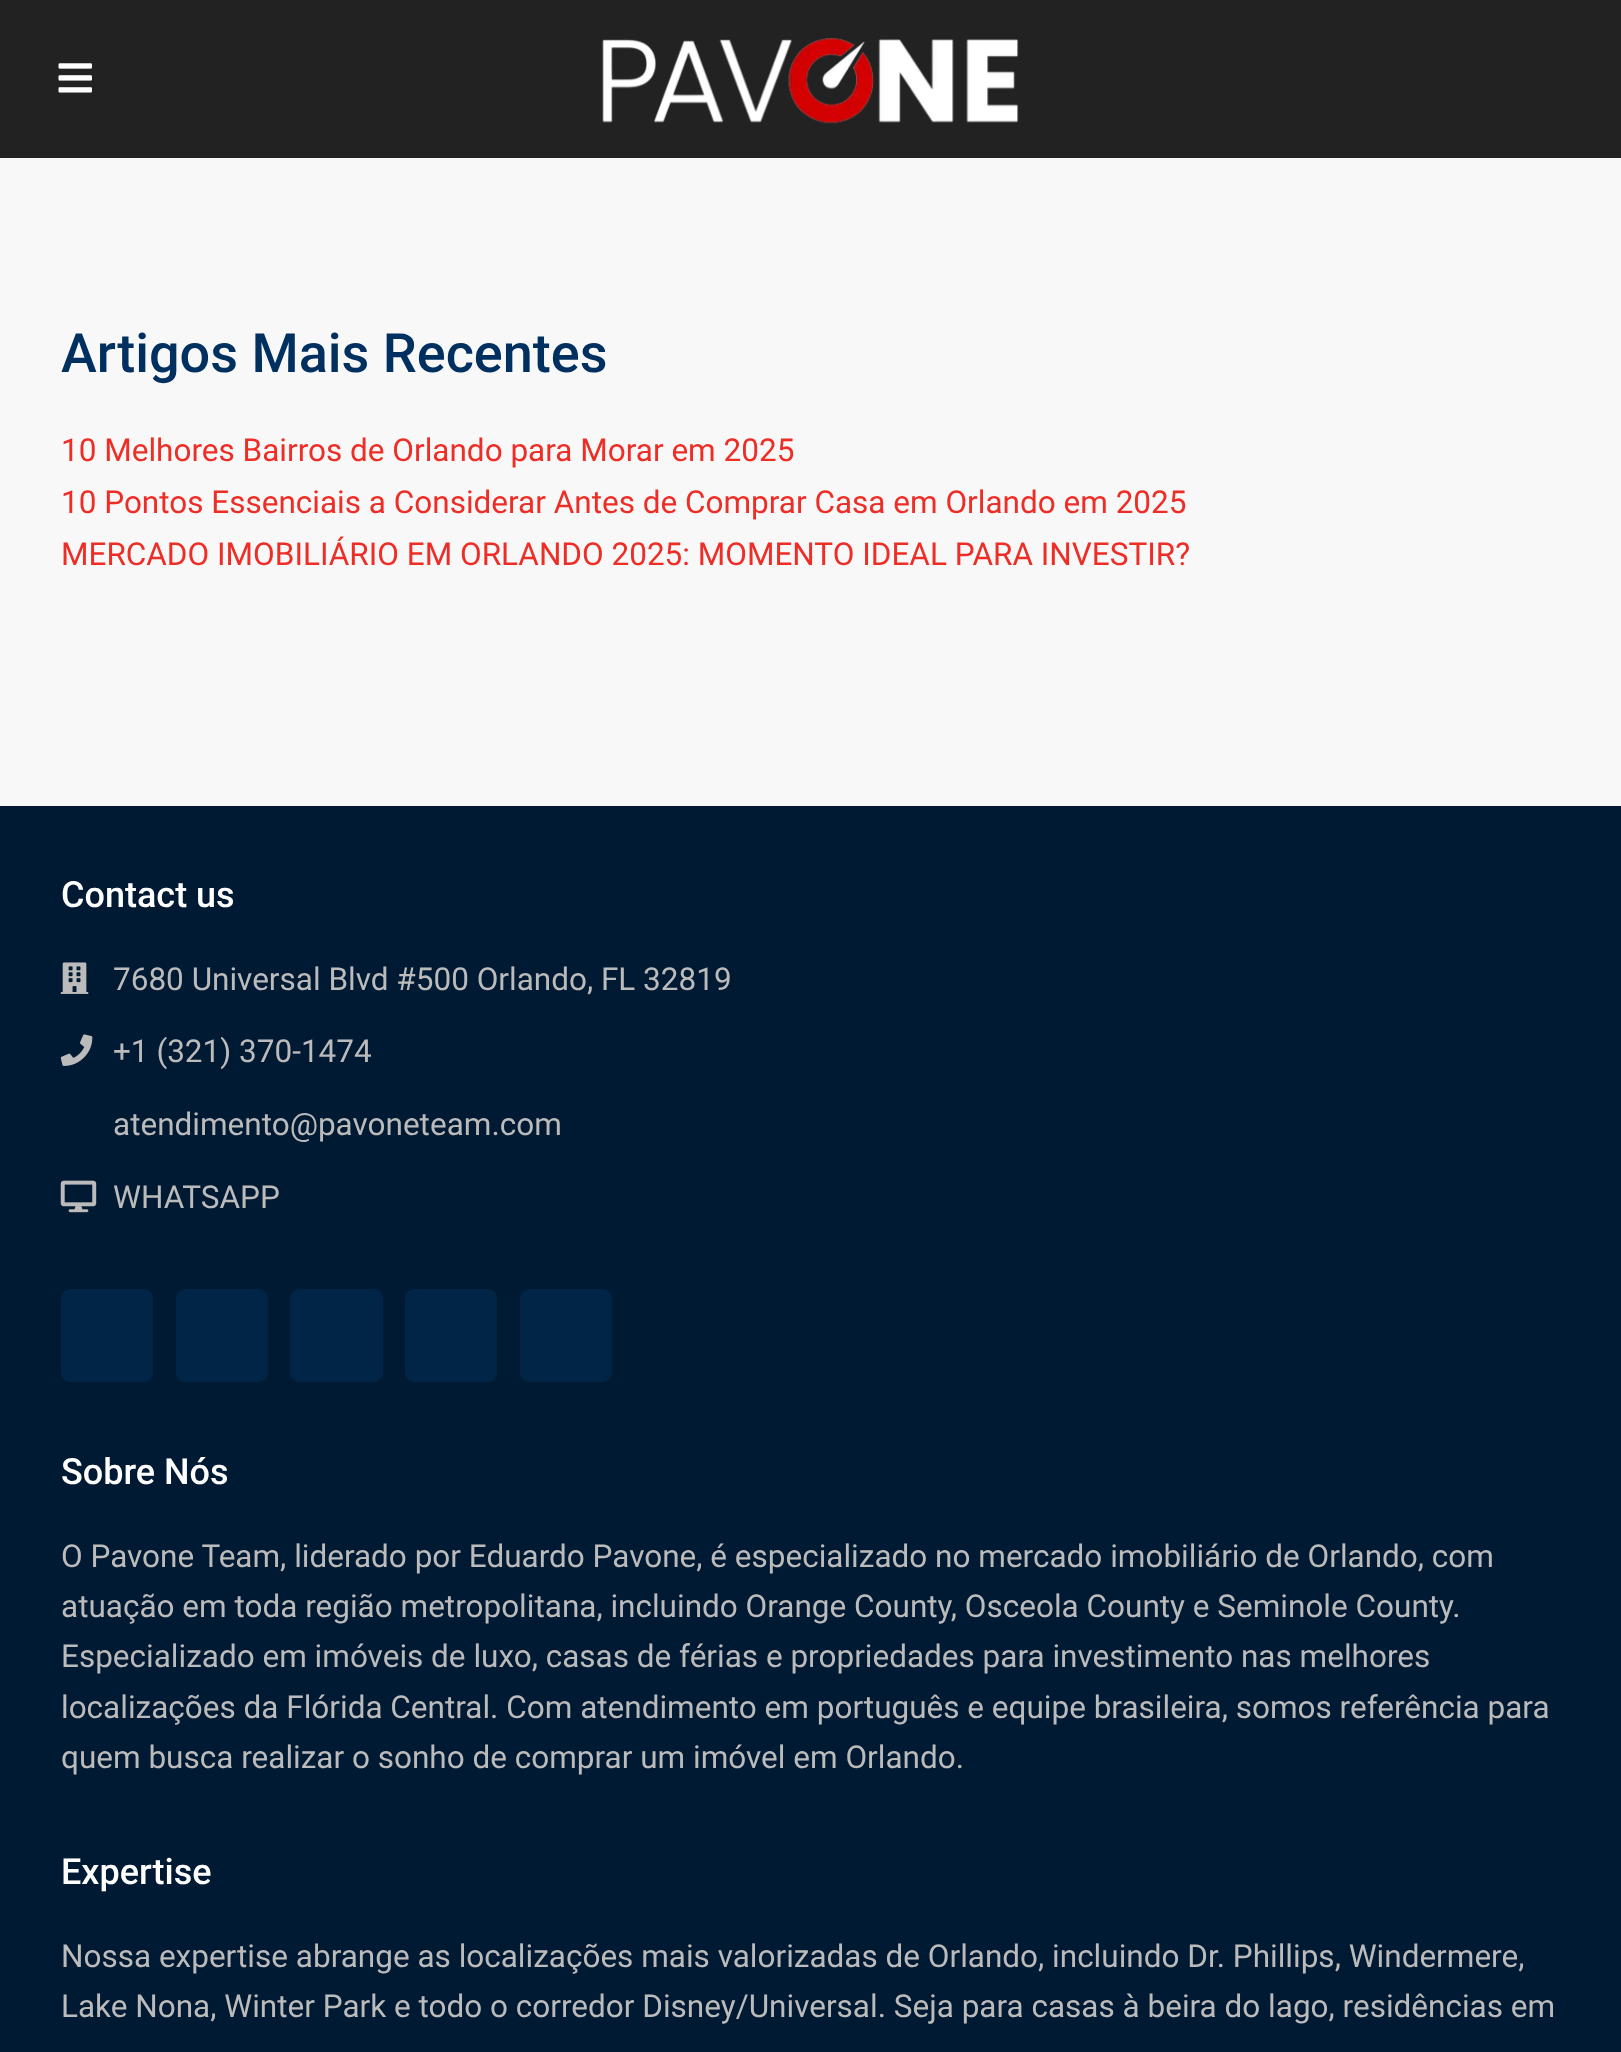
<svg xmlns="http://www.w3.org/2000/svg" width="1621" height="2052">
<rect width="100%" height="100%" fill="#f8f8f8"/>
<rect width="1621" height="158" fill="#222"/>
<image x="58" y="63" width="34" height="30" href="media/1.png"/>
<image x="602" y="38" width="417" height="86" href="media/2.png"/>
<text x="61" y="372" style="font-family:Roboto;font-size:54px;font-weight:500;fill:#003060">Artigos Mais Recentes</text>
<text x="61" y="461" style="font-family:Roboto;font-size:31.5px;fill:#ee2d26">10 Melhores Bairros de Orlando para Morar em 2025</text>
<text x="61" y="513" style="font-family:Roboto;font-size:31.5px;fill:#ee2d26">10 Pontos Essenciais a Considerar Antes de Comprar Casa em Orlando em 2025</text>
<text x="61" y="565" style="font-family:Roboto;font-size:31.5px;fill:#ee2d26">MERCADO IMOBILIÁRIO EM ORLANDO 2025: MOMENTO IDEAL PARA INVESTIR?</text>
<rect y="806" width="1621" height="1246" fill="#001a33"/>
<text x="61" y="907" style="font-family:Roboto;font-size:36px;font-weight:500;fill:#fff">Contact us</text>
<image x="60" y="962" width="29" height="32" href="media/3.png"/>
<text x="113" y="990" style="font-family:Roboto;font-size:31.5px;fill:#bbb">7680 Universal Blvd #500 Orlando, FL 32819</text>
<image x="60" y="1034" width="33" height="32" href="media/4.png"/>
<text x="113" y="1062" style="font-family:Roboto;font-size:31.5px;fill:#bbb">+1 (321) 370-1474</text>
<text x="113" y="1135" style="font-family:Roboto;font-size:31.5px;fill:#bbb">atendimento@pavoneteam.com</text>
<image x="60" y="1180" width="37" height="33" href="media/5.png"/>
<text x="113" y="1208" style="font-family:Roboto;font-size:31.5px;fill:#bbb">WHATSAPP</text>
<rect x="61" y="1289" width="92" height="93" rx="9" fill="#002547"/>
<rect x="176" y="1289" width="92" height="93" rx="9" fill="#002547"/>
<rect x="290" y="1289" width="93" height="93" rx="9" fill="#002547"/>
<rect x="405" y="1289" width="92" height="93" rx="9" fill="#002547"/>
<rect x="520" y="1289" width="92" height="93" rx="9" fill="#002547"/>
<text x="61" y="1484" style="font-family:Roboto;font-size:36px;font-weight:500;fill:#fff">Sobre Nós</text>
<text x="61" y="1567" style="font-family:Roboto;font-size:31.5px;fill:#bbb">O Pavone Team, liderado por Eduardo Pavone, é especializado no mercado imobiliário de Orlando, com</text>
<text x="61" y="1617" style="font-family:Roboto;font-size:31.5px;fill:#bbb">atuação em toda região metropolitana, incluindo Orange County, Osceola County e Seminole County.</text>
<text x="61" y="1667" style="font-family:Roboto;font-size:31.5px;fill:#bbb">Especializado em imóveis de luxo, casas de férias e propriedades para investimento nas melhores</text>
<text x="61" y="1718" style="font-family:Roboto;font-size:31.5px;fill:#bbb">localizações da Flórida Central. Com atendimento em português e equipe brasileira, somos referência para</text>
<text x="61" y="1768" style="font-family:Roboto;font-size:31.5px;fill:#bbb">quem busca realizar o sonho de comprar um imóvel em Orlando.</text>
<text x="61" y="1884" style="font-family:Roboto;font-size:36px;font-weight:500;fill:#fff">Expertise</text>
<text x="61" y="1967" style="font-family:Roboto;font-size:31.5px;fill:#bbb">Nossa expertise abrange as localizações mais valorizadas de Orlando, incluindo Dr. Phillips, Windermere,</text>
<text x="61" y="2017" style="font-family:Roboto;font-size:31.5px;fill:#bbb">Lake Nona, Winter Park e todo o corredor Disney/Universal. Seja para casas à beira do lago, residências em</text>
</svg>
